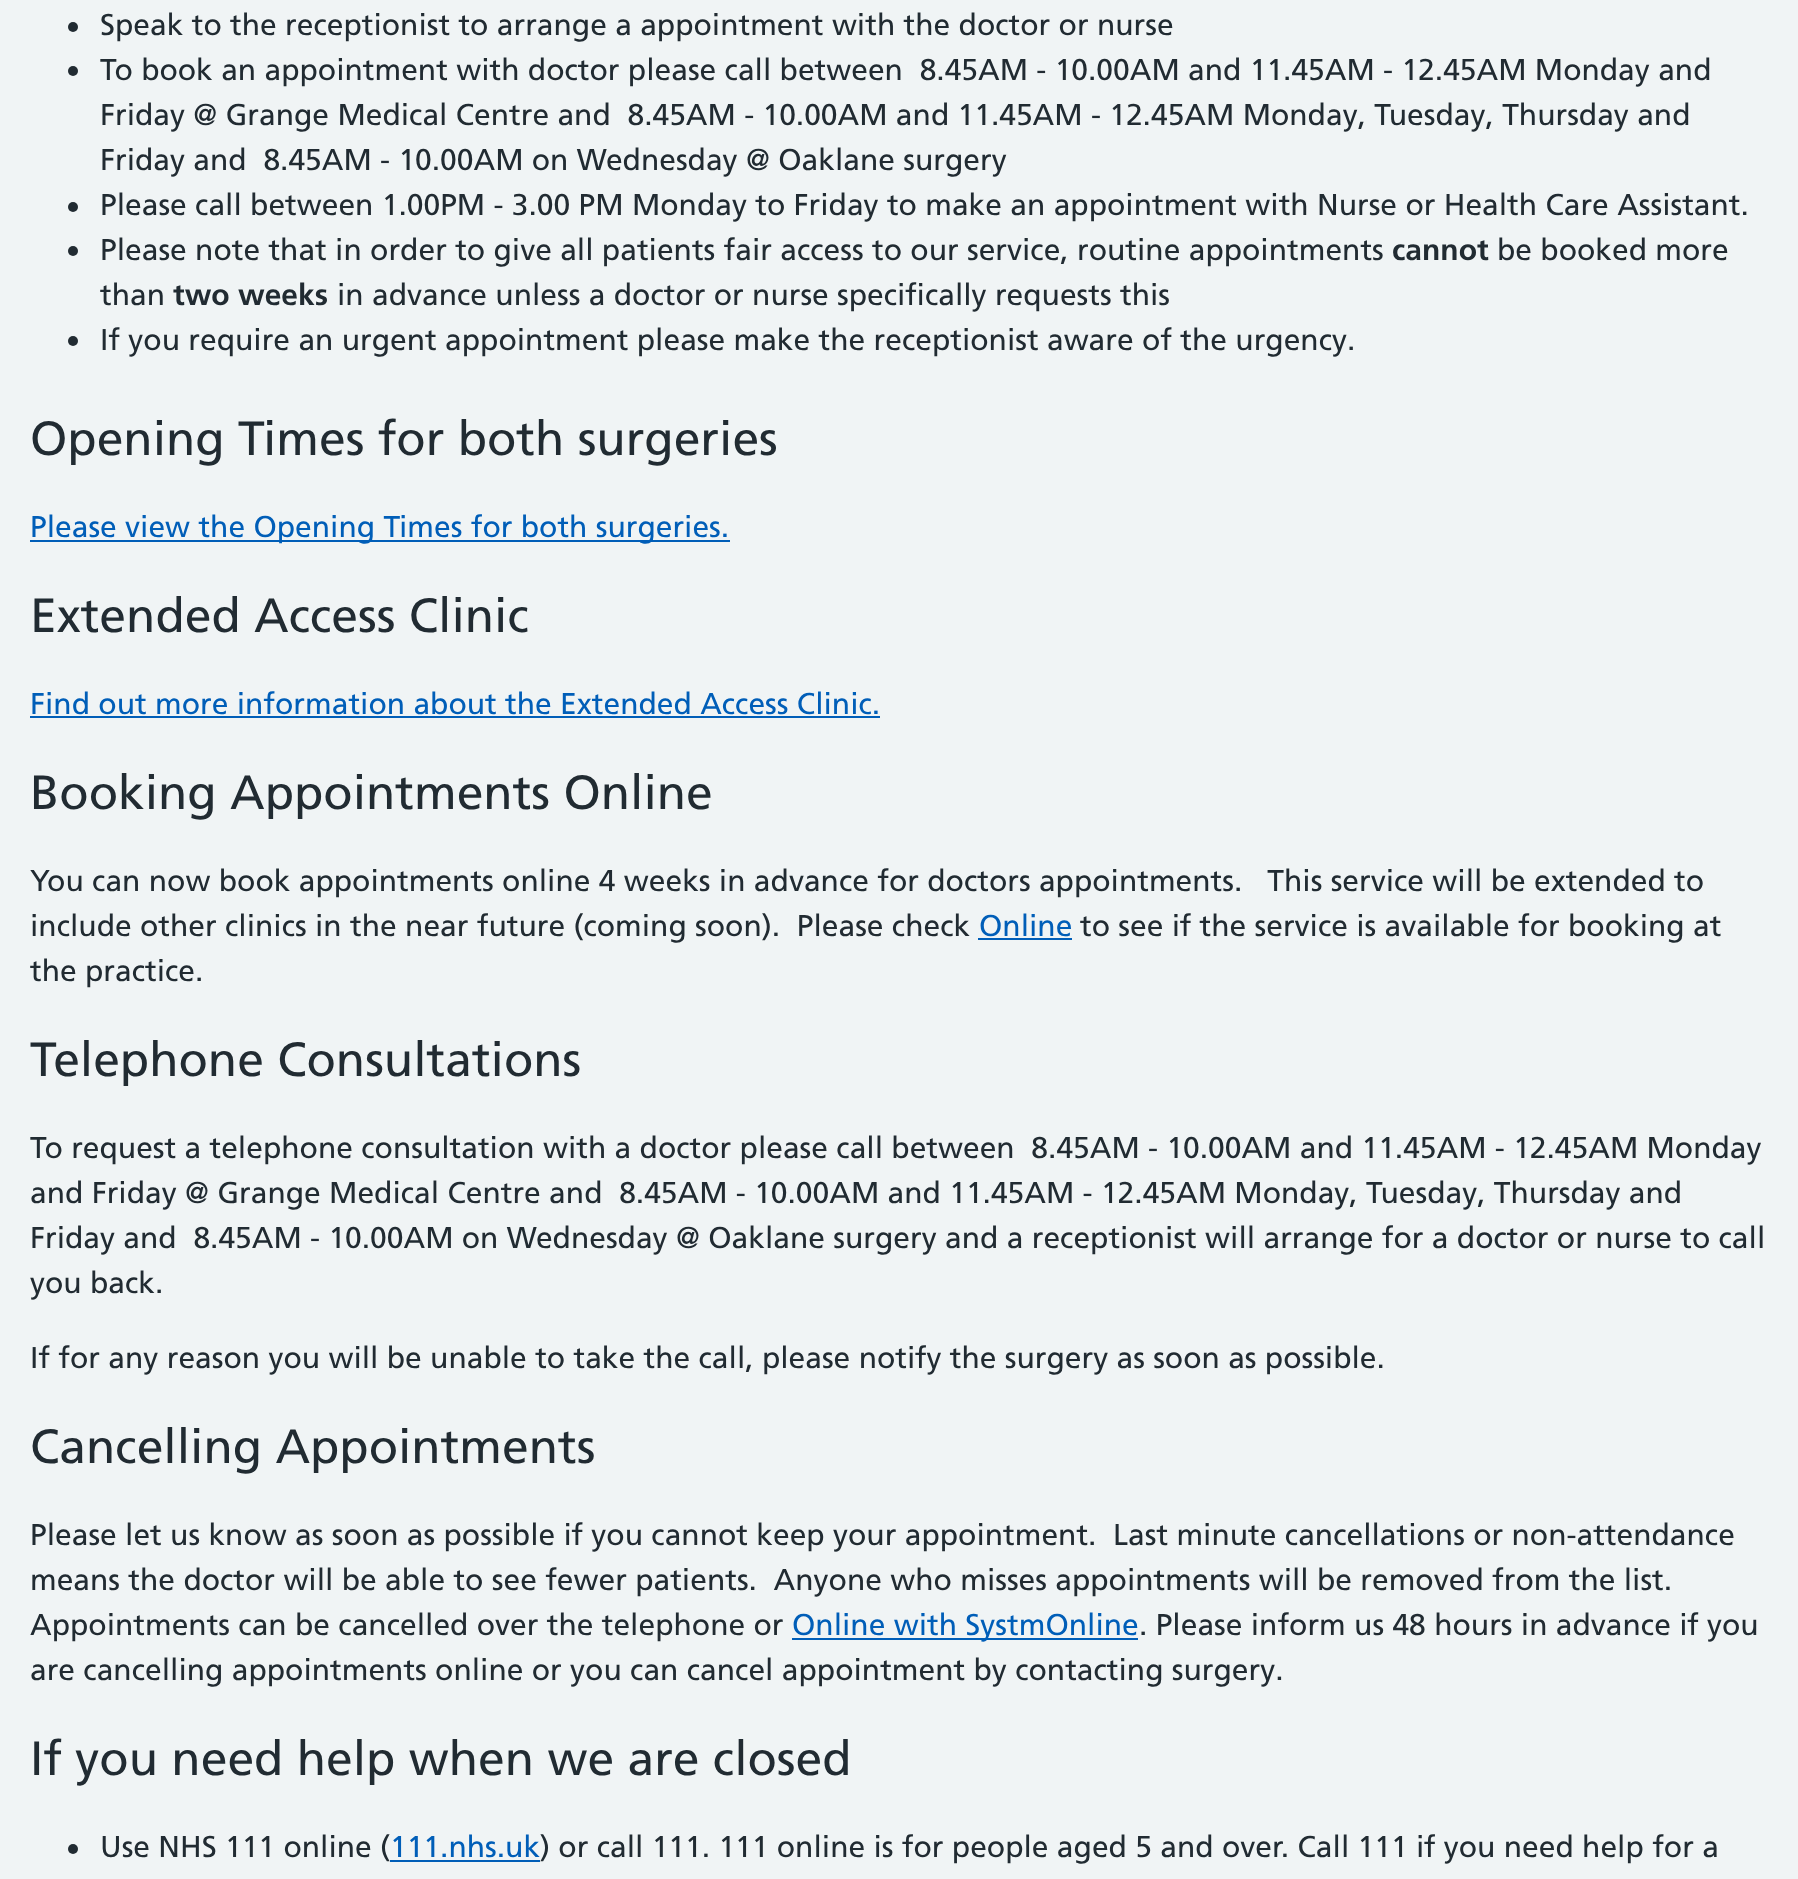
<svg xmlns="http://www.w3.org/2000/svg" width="1798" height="1879">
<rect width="100%" height="100%" fill="#f0f4f5"/>
<circle cx="73" cy="27" r="5" fill="#212b32"/>
<text x="100" y="35" style="font-family:Frutiger;font-size:30px;fill:#212b32">Speak to the receptionist to arrange a appointment with the doctor or nurse</text>
<circle cx="73" cy="71" r="5" fill="#212b32"/>
<text x="100" y="80" style="font-family:Frutiger;font-size:30px;fill:#212b32" xml:space="preserve">To book an appointment with doctor please call between  8.45AM - 10.00AM and 11.45AM - 12.45AM Monday and</text>
<text x="100" y="125" style="font-family:Frutiger;font-size:30px;fill:#212b32" xml:space="preserve">Friday @ Grange Medical Centre and  8.45AM - 10.00AM and 11.45AM - 12.45AM Monday, Tuesday, Thursday and</text>
<text x="100" y="170" style="font-family:Frutiger;font-size:30px;fill:#212b32" xml:space="preserve">Friday and  8.45AM - 10.00AM on Wednesday @ Oaklane surgery</text>
<circle cx="73" cy="207" r="5" fill="#212b32"/>
<text x="100" y="215" style="font-family:Frutiger;font-size:30px;fill:#212b32">Please call between 1.00PM - 3.00 PM Monday to Friday to make an appointment with Nurse or Health Care Assistant.</text>
<circle cx="73" cy="251" r="5" fill="#212b32"/>
<text x="100" y="260" style="font-family:Frutiger;font-size:30px;fill:#212b32">Please note that in order to give all patients fair access to our service, routine appointments</text>
<text x="1392" y="260" style="font-family:Frutiger;font-size:30px;font-weight:bold;fill:#212b32">cannot</text>
<text x="1497" y="260" style="font-family:Frutiger;font-size:30px;fill:#212b32">be booked more</text>
<text x="100" y="305" style="font-family:Frutiger;font-size:30px;fill:#212b32">than</text>
<text x="173" y="305" style="font-family:Frutiger;font-size:30px;font-weight:bold;fill:#212b32">two weeks</text>
<text x="337" y="305" style="font-family:Frutiger;font-size:30px;fill:#212b32">in advance unless a doctor or nurse specifically requests this</text>
<circle cx="73" cy="341" r="5" fill="#212b32"/>
<text x="100" y="350" style="font-family:Frutiger;font-size:30px;fill:#212b32">If you require an urgent appointment please make the receptionist aware of the urgency.</text>
<text x="30" y="455" style="font-family:Frutiger;font-size:48px;fill:#212b32">Opening Times for both surgeries</text>
<rect x="30" y="540" width="700" height="2" fill="#005eb8"/>
<text x="30" y="537" style="font-family:Frutiger;font-size:30px;fill:#005eb8">Please view the Opening Times for both surgeries.</text>
<text x="30" y="632" style="font-family:Frutiger;font-size:48px;fill:#212b32">Extended Access Clinic</text>
<text x="30" y="714" style="font-family:Frutiger;font-size:30px;fill:#005eb8">Find out more information about the Extended Access Clinic.</text>
<rect x="30" y="716" width="850" height="2" fill="#005eb8"/>
<text x="30" y="809" style="font-family:Frutiger;font-size:48px;fill:#212b32">Booking Appointments Online</text>
<text x="30" y="891" style="font-family:Frutiger;font-size:30px;fill:#212b32" xml:space="preserve">You can now book appointments online 4 weeks in advance for doctors appointments.   This service will be extended to</text>
<text x="30" y="936" style="font-family:Frutiger;font-size:30px;fill:#212b32" xml:space="preserve">include other clinics in the near future (coming soon).  Please check</text>
<text x="979" y="936" style="font-family:Frutiger;font-size:30px;fill:#005eb8">Online</text>
<rect x="978" y="938" width="94" height="2" fill="#005eb8"/>
<text x="1080" y="936" style="font-family:Frutiger;font-size:30px;fill:#212b32">to see if the service is available for booking at</text>
<text x="30" y="981" style="font-family:Frutiger;font-size:30px;fill:#212b32">the practice.</text>
<text x="30" y="1076" style="font-family:Frutiger;font-size:48px;fill:#212b32">Telephone Consultations</text>
<text x="30" y="1158" style="font-family:Frutiger;font-size:30px;fill:#212b32" xml:space="preserve">To request a telephone consultation with a doctor please call between  8.45AM - 10.00AM and 11.45AM - 12.45AM Monday</text>
<text x="30" y="1203" style="font-family:Frutiger;font-size:30px;fill:#212b32" xml:space="preserve">and Friday @ Grange Medical Centre and  8.45AM - 10.00AM and 11.45AM - 12.45AM Monday, Tuesday, Thursday and</text>
<text x="30" y="1248" style="font-family:Frutiger;font-size:30px;fill:#212b32" xml:space="preserve">Friday and  8.45AM - 10.00AM on Wednesday @ Oaklane surgery and a receptionist will arrange for a doctor or nurse to call</text>
<text x="30" y="1293" style="font-family:Frutiger;font-size:30px;fill:#212b32">you back.</text>
<text x="30" y="1368" style="font-family:Frutiger;font-size:30px;fill:#212b32">If for any reason you will be unable to take the call, please notify the surgery as soon as possible.</text>
<text x="30" y="1463" style="font-family:Frutiger;font-size:48px;fill:#212b32">Cancelling Appointments</text>
<text x="30" y="1545" style="font-family:Frutiger;font-size:30px;fill:#212b32" xml:space="preserve">Please let us know as soon as possible if you cannot keep your appointment.  Last minute cancellations or non-attendance</text>
<text x="30" y="1590" style="font-family:Frutiger;font-size:30px;fill:#212b32" xml:space="preserve">means the doctor will be able to see fewer patients.  Anyone who misses appointments will be removed from the list.</text>
<text x="30" y="1635" style="font-family:Frutiger;font-size:30px;fill:#212b32">Appointments can be cancelled over the telephone or</text>
<rect x="792" y="1638" width="346" height="2" fill="#005eb8"/>
<text x="792" y="1635" style="font-family:Frutiger;font-size:30px;fill:#005eb8">Online with SystmOnline</text>
<text x="1139" y="1635" style="font-family:Frutiger;font-size:30px;fill:#212b32">. Please inform us 48 hours in advance if you</text>
<text x="30" y="1680" style="font-family:Frutiger;font-size:30px;fill:#212b32">are cancelling appointments online or you can cancel appointment by contacting surgery.</text>
<text x="30" y="1775" style="font-family:Frutiger;font-size:48px;fill:#212b32">If you need help when we are closed</text>
<circle cx="73" cy="1849" r="5" fill="#212b32"/>
<text x="100" y="1857" style="font-family:Frutiger;font-size:30px;fill:#212b32">Use NHS 111 online (</text>
<text x="390" y="1857" style="font-family:Frutiger;font-size:30px;fill:#005eb8">111.nhs.uk</text>
<rect x="390" y="1860" width="150" height="2" fill="#005eb8"/>
<text x="540" y="1857" style="font-family:Frutiger;font-size:30px;fill:#212b32">) or call 111. 111 online is for people aged 5 and over. Call 111 if you need help for a</text>
</svg>
